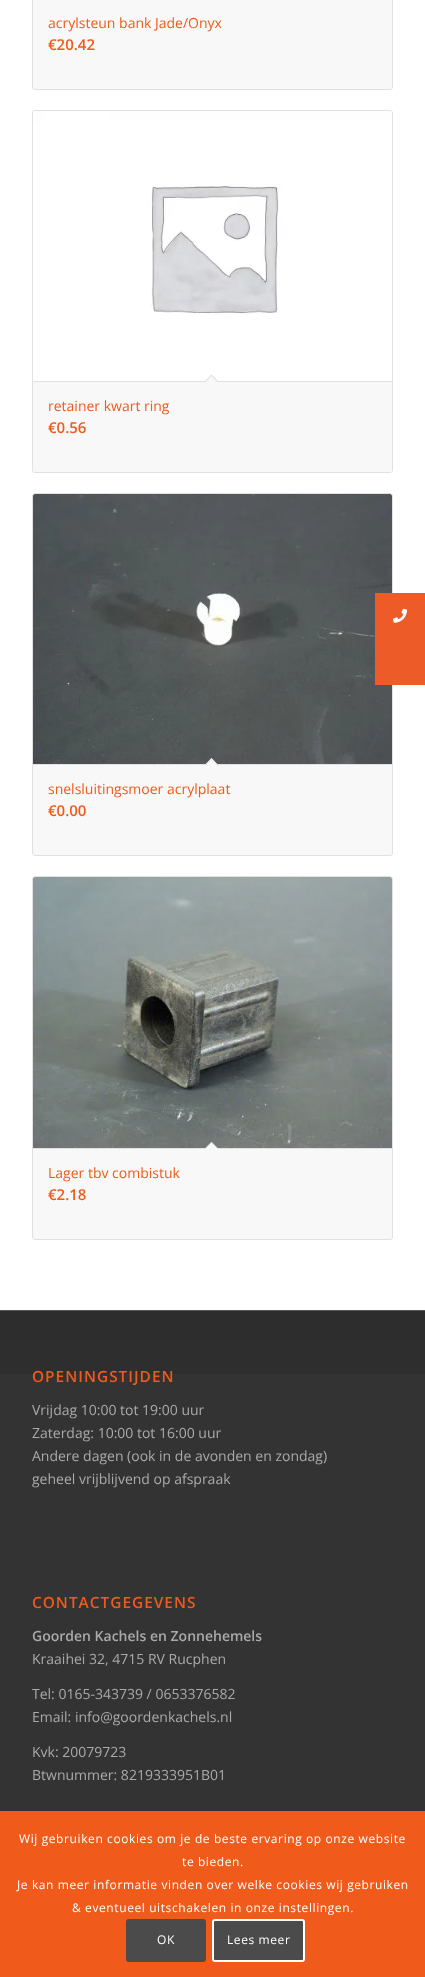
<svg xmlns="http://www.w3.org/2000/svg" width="425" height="1977">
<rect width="100%" height="100%" fill="#fff"/>
<rect x="32.5" y="-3.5" width="360" height="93" rx="2.5" fill="none" stroke="#e1e1e1"/>
<path d="M33-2h359v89c0 1-1 2-2 2h-355c-1 0-2-1-2-2z" fill="#f8f8f8"/>
<text x="48" y="28" style="font-family:Open Sans;font-size:14px;fill:#f05a1a">acrylsteun bank Jade/Onyx</text>
<text x="48" y="50" style="font-family:Open Sans;font-size:15px;font-weight:600;fill:#f05a1a">€20.42</text>
<rect x="32.5" y="110.5" width="360" height="362" rx="2.5" fill="none" stroke="#e1e1e1"/>
<image x="33" y="111" width="359" height="270" href="media/1.png"/>
<path d="M33 381h359v89c0 1-1 2-2 2h-355c-1 0-2-1-2-2z" fill="#f8f8f8"/>
<rect x="33" y="381" width="359" height="1" fill="#e1e1e1"/>
<path d="M211.5 374.5l7 7l-7 7l-7-7z" fill="#f8f8f8"/>
<path d="M211.5 374.5l7 7l-.5 1l-7-7z" fill="#e1e1e1"/>
<path d="M211.5 374.5l.5 1l-7 7l-.5-1z" fill="#e1e1e1"/>
<text x="48" y="411" style="font-family:Open Sans;font-size:14px;fill:#f05a1a">retainer kwart ring</text>
<text x="48" y="433" style="font-family:Open Sans;font-size:15px;font-weight:600;fill:#f05a1a">€0.56</text>
<rect x="32.5" y="493.5" width="360" height="362" rx="2.5" fill="none" stroke="#e1e1e1"/>
<image x="33" y="494" width="359" height="270" href="media/2.png"/>
<path d="M33 764h359v89c0 1-1 2-2 2h-355c-1 0-2-1-2-2z" fill="#f8f8f8"/>
<rect x="33" y="764" width="359" height="1" fill="#e1e1e1"/>
<path d="M211.5 758l7 7.5l-7 7l-7-7z" fill="#f8f8f8"/>
<path d="M211.5 758l7 7.5l-.5 .5l-7-7z" fill="#e1e1e1"/>
<path d="M211.5 758l.5 1l-7 7l-.5-.5z" fill="#e1e1e1"/>
<text x="48" y="794" style="font-family:Open Sans;font-size:14px;fill:#f05a1a">snelsluitingsmoer acrylplaat</text>
<text x="48" y="816" style="font-family:Open Sans;font-size:15px;font-weight:600;fill:#f05a1a">€0.00</text>
<rect x="32.5" y="876.5" width="360" height="363" rx="2.5" fill="none" stroke="#e1e1e1"/>
<image x="33" y="877" width="359" height="271" href="media/3.png"/>
<path d="M33 1148h359v89c0 1-1 2-2 2h-355c-1 0-2-1-2-2z" fill="#f8f8f8"/>
<rect x="33" y="1148" width="359" height="1" fill="#e1e1e1"/>
<path d="M211.5 1142l7 7l-7 7l-7-7z" fill="#f8f8f8"/>
<path d="M211.5 1142l7 7l-.5 .5l-7-7z" fill="#e1e1e1"/>
<path d="M211.5 1142l.5 .5l-7 7l-.5-.5z" fill="#e1e1e1"/>
<text x="48" y="1178" style="font-family:Open Sans;font-size:14px;fill:#f05a1a">Lager tbv combistuk</text>
<text x="48" y="1200" style="font-family:Open Sans;font-size:15px;font-weight:600;fill:#f05a1a">€2.18</text>
<rect y="1311" width="425" height="500" fill="#333"/>
<image x="0" y="1311" width="425" height="63" href="media/4.png"/>
<rect y="1310" width="425" height="1" fill="#555"/>
<text x="32" y="1382" style="font-family:Open Sans;font-size:15.4px;font-weight:600;letter-spacing:1px;fill:#f05a1a">OPENINGSTIJDEN</text>
<text x="32" y="1415" style="font-family:Open Sans;font-size:14px;fill:#aaa">Vrijdag 10:00 tot 19:00 uur</text>
<text x="32" y="1438" style="font-family:Open Sans;font-size:14px;fill:#aaa">Zaterdag: 10:00 tot 16:00 uur</text>
<text x="32" y="1461" style="font-family:Open Sans;font-size:14px;fill:#aaa">Andere dagen (ook in de avonden en zondag)</text>
<text x="32" y="1484" style="font-family:Open Sans;font-size:14px;fill:#aaa">geheel vrijblijvend op afspraak</text>
<text x="32" y="1608" style="font-family:Open Sans;font-size:15.4px;font-weight:600;letter-spacing:1px;fill:#f05a1a">CONTACTGEGEVENS</text>
<text x="32" y="1641" style="font-family:Open Sans;font-size:14px;font-weight:600;fill:#aaa">Goorden Kachels en Zonnehemels</text>
<text x="32" y="1664" style="font-family:Open Sans;font-size:14px;fill:#aaa">Kraaihei 32, 4715 RV Rucphen</text>
<text x="32" y="1699" style="font-family:Open Sans;font-size:14px;fill:#aaa">Tel: 0165-343739 / 0653376582</text>
<text x="32" y="1722" style="font-family:Open Sans;font-size:14px;fill:#aaa">Email: info@goordenkachels.nl</text>
<text x="32" y="1757" style="font-family:Open Sans;font-size:14px;fill:#aaa">Kvk: 20079723</text>
<text x="32" y="1780" style="font-family:Open Sans;font-size:14px;fill:#aaa">Btwnummer: 8219333951B01</text>
<rect x="375" y="593" width="50" height="92" fill="#ed5b29"/>
<image x="393" y="608" width="14" height="15" href="media/5.png"/>
<rect y="1811" width="425" height="166" fill="#f05a1a"/>
<text x="19" y="1843" style="font-family:Open Sans;font-size:12px;letter-spacing:0.6px;fill:#fff">Wij gebruiken cookies om je de beste ervaring op onze website</text>
<text x="182" y="1866" style="font-family:Open Sans;font-size:12px;letter-spacing:0.6px;fill:#fff">te bieden.</text>
<text x="17" y="1889" style="font-family:Open Sans;font-size:12px;letter-spacing:0.6px;fill:#fff">Je kan meer informatie vinden over welke cookies wij gebruiken</text>
<text x="72" y="1912" style="font-family:Open Sans;font-size:12px;letter-spacing:0.6px;fill:#fff">&amp; eventueel uitschakelen in onze instellingen.</text>
<rect x="126" y="1919" width="80" height="43" rx="3" fill="#4b4b4b"/>
<text x="157" y="1944" style="font-family:Open Sans;font-size:12px;letter-spacing:0.6px;fill:#fff">OK</text>
<rect x="213" y="1920" width="91" height="41" rx="2" fill="#4b4b4b" stroke="#fff" stroke-width="2"/>
<text x="227" y="1944" style="font-family:Open Sans;font-size:12px;letter-spacing:0.6px;fill:#fff">Lees meer</text>
</svg>
